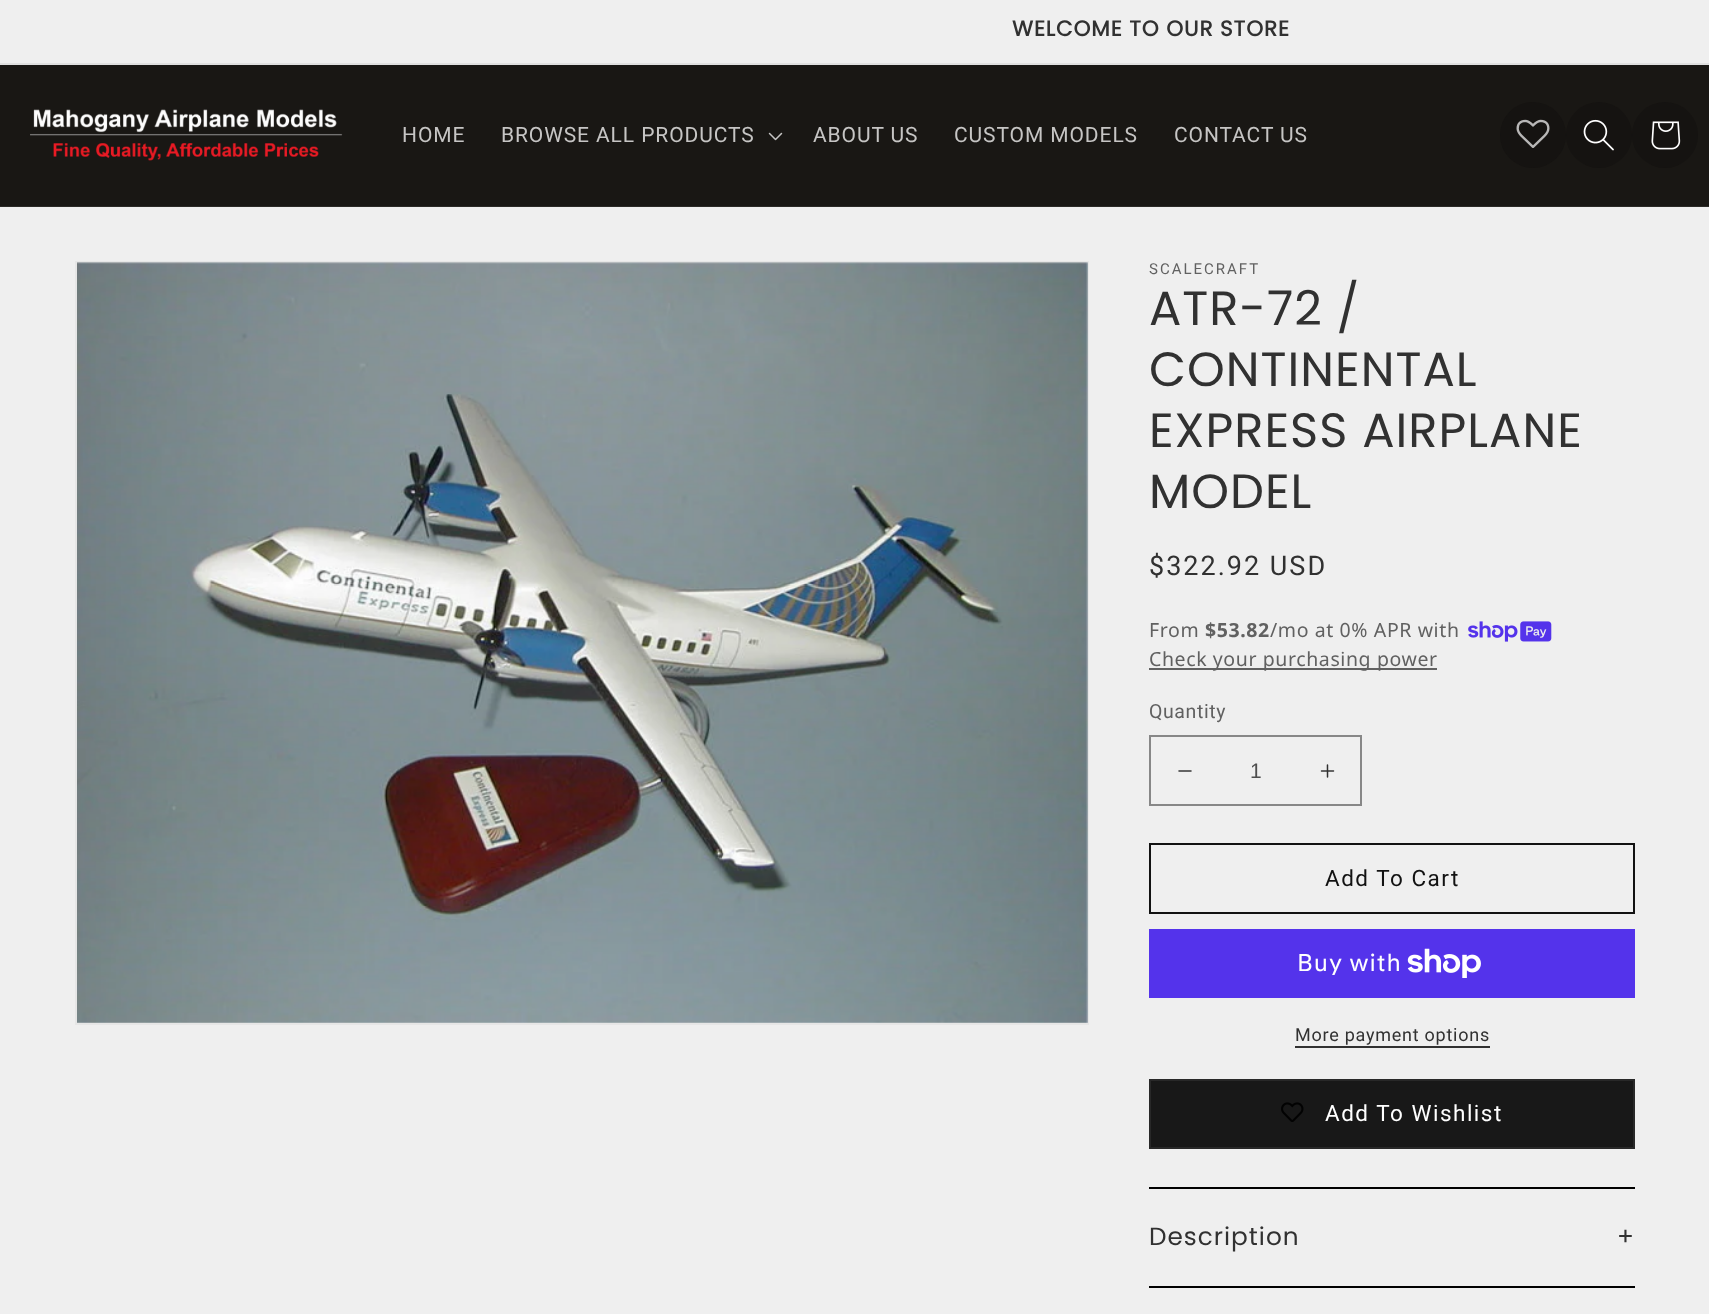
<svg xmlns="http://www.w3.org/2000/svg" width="1709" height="1314">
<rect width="100%" height="100%" fill="#efefef"/>
<rect y="63" width="1709" height="2" fill="#e0e0e0"/>
<text x="1012" y="36" style="font-family:Poppins;font-size:21.5px;font-weight:bold;letter-spacing:0.9px;fill:#313131">WELCOME TO OUR STORE</text>
<rect y="65" width="1709" height="141" fill="#191714"/>
<rect y="206" width="1709" height="1" fill="#2b2a27"/>
<image x="30" y="109" width="313" height="52" href="media/1.png"/>
<text x="402" y="142" style="font-family:Roboto;font-size:21px;letter-spacing:0.9px;fill:#c6c5c4">HOME</text>
<text x="501" y="142" style="font-family:Roboto;font-size:21px;letter-spacing:0.9px;fill:#c6c5c4">BROWSE ALL PRODUCTS</text>
<image x="768" y="132" width="15" height="9" href="media/2.png"/>
<text x="813" y="142" style="font-family:Roboto;font-size:21px;letter-spacing:0.9px;fill:#c6c5c4">ABOUT US</text>
<text x="954" y="142" style="font-family:Roboto;font-size:21px;letter-spacing:0.9px;fill:#c6c5c4">CUSTOM MODELS</text>
<text x="1174" y="142" style="font-family:Roboto;font-size:21px;letter-spacing:0.9px;fill:#c6c5c4">CONTACT US</text>
<circle cx="1533" cy="135" r="33" fill="#151311"/>
<image x="1516" y="119" width="34" height="29" href="media/3.png"/>
<circle cx="1599" cy="135" r="33" fill="#151311"/>
<image x="1583" y="119" width="31" height="32" href="media/4.png"/>
<circle cx="1665" cy="135" r="33" fill="#151311"/>
<image x="1651" y="121" width="30" height="29" href="media/5.png"/>
<rect x="76" y="262" width="1012" height="762" fill="none" stroke="#e6e6e6" stroke-width="2"/>
<image x="77" y="262" width="1011" height="761" href="media/6.png"/>
<text x="1149" y="274" style="font-family:Roboto;font-size:15px;letter-spacing:2px;fill:#616161">SCALECRAFT</text>
<text x="1149" y="325" style="font-family:Poppins;font-size:48px;letter-spacing:1px;fill:#313131">ATR-72 /</text>
<text x="1149" y="386" style="font-family:Poppins;font-size:48px;letter-spacing:1px;fill:#313131">CONTINENTAL</text>
<text x="1149" y="447" style="font-family:Poppins;font-size:48px;letter-spacing:1px;fill:#313131">EXPRESS AIRPLANE</text>
<text x="1149" y="508" style="font-family:Poppins;font-size:48px;letter-spacing:1px;fill:#313131">MODEL</text>
<text x="1149" y="575" style="font-family:Roboto;font-size:27px;letter-spacing:2px;fill:#313131">$322.92 USD</text>
<text x="1149" y="637" style="font-family:Noto Sans;font-size:19.5px;letter-spacing:0.6px;fill:#616161">From</text>
<text x="1205" y="637" style="font-family:Noto Sans;font-size:19.5px;font-weight:bold;letter-spacing:0.6px;fill:#616161">$53.82</text>
<text x="1270" y="637" style="font-family:Noto Sans;font-size:19.5px;letter-spacing:0.6px;fill:#616161">/mo at 0% APR with</text>
<image x="1468" y="621" width="84" height="21" href="media/7.png"/>
<rect x="1149" y="668" width="288" height="2" fill="#616161"/>
<text x="1149" y="666" style="font-family:Noto Sans;font-size:19.5px;letter-spacing:0.6px;fill:#616161">Check your purchasing power</text>
<text x="1149" y="718" style="font-family:Roboto;font-size:19.5px;letter-spacing:0.6px;fill:#616161">Quantity</text>
<image x="1178" y="770" width="14" height="2" href="media/8.png"/>
<image x="1320" y="764" width="15" height="14" href="media/9.png"/>
<rect x="1150" y="736" width="211" height="69" fill="none" stroke="#878787" stroke-width="2"/>
<text x="1250" y="778" style="font-family:Liberation Sans;font-size:21px;fill:#4e4e4e">1</text>
<rect x="1150" y="844" width="484" height="69" fill="none" stroke="#121212" stroke-width="2"/>
<text x="1325" y="886" style="font-family:Roboto;font-size:22.5px;letter-spacing:1.5px;fill:#121212">Add To Cart</text>
<rect x="1149" y="929" width="486" height="69" fill="#5433eb"/>
<text x="1297" y="971" style="font-family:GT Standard;font-size:24px;letter-spacing:0.9px;fill:#fff">Buy with</text>
<image x="1407" y="948" width="74" height="30" href="media/10.png"/>
<text x="1295" y="1041" style="font-family:Roboto;font-size:18px;letter-spacing:0.75px;fill:#313131">More payment options</text>
<rect x="1295" y="1046" width="195" height="2" fill="#313131"/>
<rect x="1151" y="1081" width="482" height="66" fill="#181818"/>
<image x="1281" y="1102" width="23" height="20" href="media/11.png"/>
<rect x="1150" y="1080" width="484" height="68" fill="none" stroke="#282828" stroke-width="2"/>
<text x="1325" y="1121" style="font-family:Roboto;font-size:22.5px;letter-spacing:1.5px;fill:#fff">Add To Wishlist</text>
<rect x="1149" y="1187" width="486" height="2" fill="#000"/>
<rect x="1149" y="1286" width="486" height="2" fill="#000"/>
<text x="1149" y="1245" style="font-family:Poppins;font-size:24.75px;letter-spacing:1px;fill:#313131">Description</text>
<text x="1617" y="1245" style="font-family:Poppins;font-size:24.75px;letter-spacing:1px;fill:#313131">+</text>
</svg>
